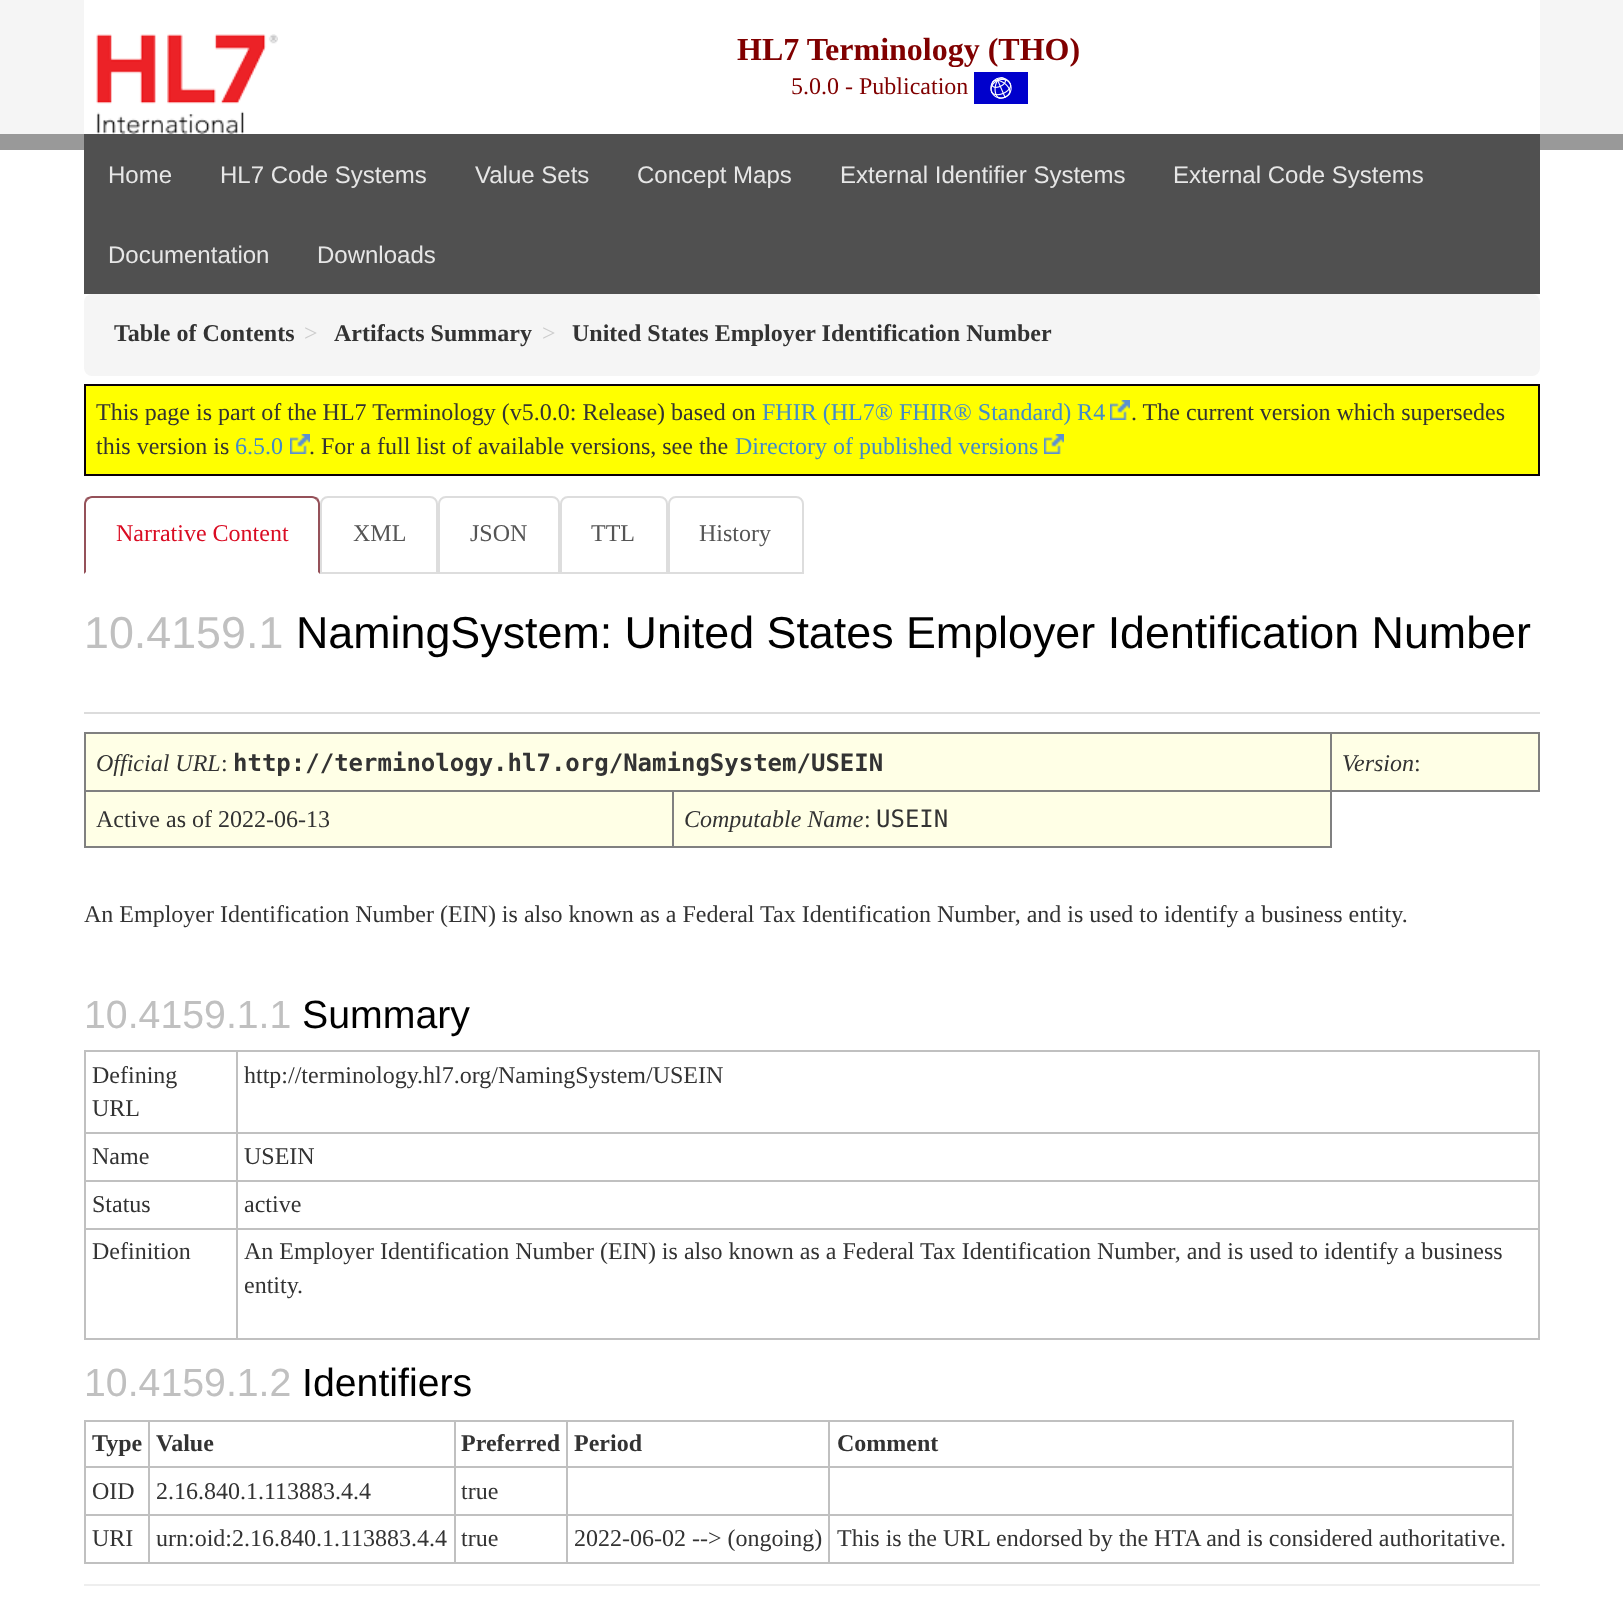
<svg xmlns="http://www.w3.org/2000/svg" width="1623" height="1603">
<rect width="100%" height="100%" fill="#fff"/>
<rect width="1623" height="134" fill="#f5f5f5"/>
<rect x="84" width="1456" height="134" fill="#fff"/>
<image x="96" y="34" width="182" height="100" href="media/1.png"/>
<text x="737" y="60" style="font-family:Liberation Serif;font-size:32px;font-weight:bold;fill:#800000">HL7 Terminology (THO)</text>
<text x="791" y="94" style="font-family:Liberation Serif;font-size:24px;fill:#800000">5.0.0 - Publication</text>
<image x="974" y="72" width="54" height="32" href="media/2.png"/>
<rect y="134" width="1623" height="16" fill="#999"/>
<rect x="84" y="134" width="1456" height="160" fill="#505050"/>
<text x="108" y="183" style="font-family:Liberation Sans;font-size:24px;fill:#e6e6e6">Home</text>
<text x="220" y="183" style="font-family:Liberation Sans;font-size:24px;fill:#e6e6e6">HL7 Code Systems</text>
<text x="475" y="183" style="font-family:Liberation Sans;font-size:24px;fill:#e6e6e6">Value Sets</text>
<text x="637" y="183" style="font-family:Liberation Sans;font-size:24px;fill:#e6e6e6">Concept Maps</text>
<text x="840" y="183" style="font-family:Liberation Sans;font-size:24px;fill:#e6e6e6">External Identifier Systems</text>
<text x="1173" y="183" style="font-family:Liberation Sans;font-size:24px;fill:#e6e6e6">External Code Systems</text>
<text x="108" y="263" style="font-family:Liberation Sans;font-size:24px;fill:#e6e6e6">Documentation</text>
<text x="317" y="263" style="font-family:Liberation Sans;font-size:24px;fill:#e6e6e6">Downloads</text>
<rect x="84" y="294" width="1456" height="82" rx="8" fill="#f5f5f5"/>
<text x="114" y="341" style="font-family:Liberation Serif;font-size:24px;font-weight:bold;fill:#333">Table of Contents</text>
<text x="304" y="341" style="font-family:Liberation Serif;font-size:24px;fill:#ccc">&gt;</text>
<text x="334" y="341" style="font-family:Liberation Serif;font-size:24px;font-weight:bold;fill:#333">Artifacts Summary</text>
<text x="542" y="341" style="font-family:Liberation Serif;font-size:24px;fill:#ccc">&gt;</text>
<text x="572" y="341" style="font-family:Liberation Serif;font-size:24px;font-weight:bold;fill:#333">United States Employer Identification Number</text>
<rect x="85" y="385" width="1454" height="90" fill="#ff0" stroke="#0a0008" stroke-width="2"/>
<text x="96" y="420" style="font-family:Liberation Serif;font-size:24px;fill:#333">This page is part of the HL7 Terminology (v5.0.0: Release) based on</text>
<text x="762" y="420" style="font-family:Liberation Serif;font-size:24px;fill:#428bca">FHIR (HL7® FHIR® Standard) R4</text>
<image x="1110" y="400" width="20" height="20" href="media/3.png"/>
<text x="1131" y="420" style="font-family:Liberation Serif;font-size:24px;fill:#333">. The current version which supersedes</text>
<text x="96" y="454" style="font-family:Liberation Serif;font-size:24px;fill:#333">this version is</text>
<text x="235" y="454" style="font-family:Liberation Serif;font-size:24px;fill:#428bca">6.5.0</text>
<image x="290" y="434" width="20" height="20" href="media/3.png"/>
<text x="309" y="454" style="font-family:Liberation Serif;font-size:24px;fill:#333">. For a full list of available versions, see the</text>
<text x="735" y="454" style="font-family:Liberation Serif;font-size:24px;fill:#428bca">Directory of published versions</text>
<image x="1044" y="434" width="20" height="20" href="media/3.png"/>
<path d="M92 496c-2 0-4 1-6 2l2 2c1-1 2-2 4-2h220c2 0 3 1 4 2l2-2c-2-1-4-2-6-2z" fill="#955159"/>
<path d="M320 574v-70c0-2-1-4-2-6l-2 2c1 1 2 2 2 4v68z" fill="#955159"/>
<path d="M84 574l2-2v-68c0-2 1-3 2-4l-2-2c-1 2-2 4-2 6z" fill="#955159"/>
<text x="116" y="541" style="font-family:Liberation Serif;font-size:24px;fill:#da0c23">Narrative Content</text>
<path d="M328 497h102c4 0 7 3 7 7v69h-116v-69c0-4 3-7 7-7z" fill="none" stroke="#ddd" stroke-width="2"/>
<text x="353" y="541" style="font-family:Liberation Serif;font-size:24px;fill:#555">XML</text>
<path d="M446 497h106c4 0 7 3 7 7v69h-120v-69c0-4 3-7 7-7z" fill="none" stroke="#ddd" stroke-width="2"/>
<text x="470" y="541" style="font-family:Liberation Serif;font-size:24px;fill:#555">JSON</text>
<path d="M568 497h92c4 0 7 3 7 7v69h-106v-69c0-4 3-7 7-7z" fill="none" stroke="#ddd" stroke-width="2"/>
<text x="591" y="541" style="font-family:Liberation Serif;font-size:24px;fill:#555">TTL</text>
<path d="M676 497h120c4 0 7 3 7 7v69h-134v-69c0-4 3-7 7-7z" fill="none" stroke="#ddd" stroke-width="2"/>
<text x="699" y="541" style="font-family:Liberation Serif;font-size:24px;fill:#555">History</text>
<rect x="84" y="712" width="1456" height="2" fill="#dcdcdc"/>
<text x="84" y="648" style="font-family:Liberation Sans;font-size:44.8px;fill:#c0c0c0">10.4159.1</text>
<text x="296" y="648" style="font-family:Liberation Sans;font-size:44.8px;fill:#000">NamingSystem: United States Employer Identification Number</text>
<rect x="86" y="734" width="1244" height="56" fill="#ffffe6"/>
<rect x="1330" y="732" width="210" height="2" fill="#808080"/>
<rect x="1538" y="732" width="2" height="60" fill="#808080"/>
<rect x="672" y="790" width="660" height="2" fill="#808080"/>
<rect x="1330" y="790" width="2" height="58" fill="#808080"/>
<rect x="1330" y="790" width="210" height="2" fill="#808080"/>
<rect x="1330" y="732" width="2" height="60" fill="#808080"/>
<rect x="84" y="732" width="1248" height="2" fill="#808080"/>
<rect x="672" y="846" width="660" height="2" fill="#808080"/>
<rect x="672" y="790" width="2" height="58" fill="#808080"/>
<rect x="84" y="790" width="590" height="2" fill="#808080"/>
<rect x="84" y="846" width="590" height="2" fill="#808080"/>
<rect x="84" y="790" width="2" height="58" fill="#808080"/>
<rect x="84" y="732" width="2" height="60" fill="#808080"/>
<text x="96" y="771" style="font-family:Liberation Serif;font-size:24px;font-style:italic;fill:#333">Official URL</text>
<text x="221" y="771" style="font-family:Liberation Serif;font-size:24px;fill:#333">:</text>
<text x="233" y="771" style="font-family:DejaVu Sans Mono;font-size:24px;font-weight:bold;fill:#333">http://terminology.hl7.org/NamingSystem/USEIN</text>
<rect x="1332" y="734" width="206" height="56" fill="#ffffe6"/>
<text x="1342" y="771" style="font-family:Liberation Serif;font-size:24px;font-style:italic;fill:#333">Version</text>
<text x="1414" y="771" style="font-family:Liberation Serif;font-size:24px;fill:#333">:</text>
<rect x="86" y="792" width="586" height="54" fill="#ffffe6"/>
<text x="96" y="827" style="font-family:Liberation Serif;font-size:24px;fill:#333">Active as of 2022-06-13</text>
<rect x="674" y="792" width="656" height="54" fill="#ffffe6"/>
<text x="684" y="827" style="font-family:Liberation Serif;font-size:24px;font-style:italic;fill:#333">Computable Name</text>
<text x="864" y="827" style="font-family:Liberation Serif;font-size:24px;fill:#333">:</text>
<text x="876" y="827" style="font-family:DejaVu Sans Mono;font-size:24px;fill:#333">USEIN</text>
<text x="84" y="922" style="font-family:Liberation Serif;font-size:24px;fill:#333">An Employer Identification Number (EIN) is also known as a Federal Tax Identification Number, and is used to identify a business entity.</text>
<text x="84" y="1028" style="font-family:Liberation Sans;font-size:39.25px;fill:#c0c0c0">10.4159.1.1</text>
<text x="302" y="1028" style="font-family:Liberation Sans;font-size:39.25px;fill:#000">Summary</text>
<rect x="236" y="1050" width="1304" height="2" fill="#c0c0c0"/>
<rect x="236" y="1132" width="1304" height="2" fill="#c0c0c0"/>
<rect x="236" y="1180" width="1304" height="2" fill="#c0c0c0"/>
<rect x="236" y="1228" width="1304" height="2" fill="#c0c0c0"/>
<rect x="1538" y="1228" width="2" height="112" fill="#c0c0c0"/>
<rect x="236" y="1338" width="1304" height="2" fill="#c0c0c0"/>
<rect x="236" y="1228" width="2" height="112" fill="#c0c0c0"/>
<rect x="84" y="1228" width="154" height="2" fill="#c0c0c0"/>
<rect x="236" y="1180" width="2" height="50" fill="#c0c0c0"/>
<rect x="84" y="1180" width="154" height="2" fill="#c0c0c0"/>
<rect x="236" y="1132" width="2" height="50" fill="#c0c0c0"/>
<rect x="84" y="1132" width="154" height="2" fill="#c0c0c0"/>
<rect x="236" y="1050" width="2" height="84" fill="#c0c0c0"/>
<rect x="84" y="1050" width="154" height="2" fill="#c0c0c0"/>
<rect x="84" y="1338" width="154" height="2" fill="#c0c0c0"/>
<rect x="84" y="1228" width="2" height="112" fill="#c0c0c0"/>
<rect x="84" y="1180" width="2" height="50" fill="#c0c0c0"/>
<rect x="84" y="1132" width="2" height="50" fill="#c0c0c0"/>
<rect x="84" y="1050" width="2" height="84" fill="#c0c0c0"/>
<text x="92" y="1083" style="font-family:Liberation Serif;font-size:24px;fill:#333">Defining</text>
<text x="92" y="1116" style="font-family:Liberation Serif;font-size:24px;fill:#333">URL</text>
<rect x="1538" y="1180" width="2" height="50" fill="#c0c0c0"/>
<rect x="1538" y="1132" width="2" height="50" fill="#c0c0c0"/>
<rect x="1538" y="1050" width="2" height="84" fill="#c0c0c0"/>
<text x="244" y="1083" style="font-family:Liberation Serif;font-size:24px;fill:#333">http://terminology.hl7.org/NamingSystem/USEIN</text>
<text x="92" y="1164" style="font-family:Liberation Serif;font-size:24px;fill:#333">Name</text>
<text x="244" y="1164" style="font-family:Liberation Serif;font-size:24px;fill:#333">USEIN</text>
<text x="92" y="1212" style="font-family:Liberation Serif;font-size:24px;fill:#333">Status</text>
<text x="244" y="1212" style="font-family:Liberation Serif;font-size:24px;fill:#333">active</text>
<text x="92" y="1259" style="font-family:Liberation Serif;font-size:24px;fill:#333">Definition</text>
<text x="244" y="1259" style="font-family:Liberation Serif;font-size:24px;fill:#333">An Employer Identification Number (EIN) is also known as a Federal Tax Identification Number, and is used to identify a business</text>
<text x="244" y="1293" style="font-family:Liberation Serif;font-size:24px;fill:#333">entity.</text>
<text x="84" y="1396" style="font-family:Liberation Sans;font-size:39.25px;fill:#c0c0c0">10.4159.1.2</text>
<text x="302" y="1396" style="font-family:Liberation Sans;font-size:39.25px;fill:#000">Identifiers</text>
<rect x="828" y="1420" width="686" height="2" fill="#c0c0c0"/>
<rect x="828" y="1466" width="686" height="2" fill="#c0c0c0"/>
<rect x="828" y="1514" width="686" height="2" fill="#c0c0c0"/>
<rect x="1512" y="1514" width="2" height="50" fill="#c0c0c0"/>
<rect x="828" y="1562" width="686" height="2" fill="#c0c0c0"/>
<rect x="828" y="1514" width="2" height="50" fill="#c0c0c0"/>
<rect x="566" y="1514" width="264" height="2" fill="#c0c0c0"/>
<rect x="828" y="1466" width="2" height="50" fill="#c0c0c0"/>
<rect x="566" y="1466" width="264" height="2" fill="#c0c0c0"/>
<rect x="828" y="1420" width="2" height="48" fill="#c0c0c0"/>
<rect x="566" y="1420" width="264" height="2" fill="#c0c0c0"/>
<rect x="566" y="1562" width="264" height="2" fill="#c0c0c0"/>
<rect x="566" y="1514" width="2" height="50" fill="#c0c0c0"/>
<rect x="454" y="1514" width="114" height="2" fill="#c0c0c0"/>
<rect x="566" y="1466" width="2" height="50" fill="#c0c0c0"/>
<rect x="454" y="1466" width="114" height="2" fill="#c0c0c0"/>
<rect x="566" y="1420" width="2" height="48" fill="#c0c0c0"/>
<rect x="454" y="1420" width="114" height="2" fill="#c0c0c0"/>
<rect x="454" y="1562" width="114" height="2" fill="#c0c0c0"/>
<rect x="454" y="1514" width="2" height="50" fill="#c0c0c0"/>
<rect x="148" y="1514" width="308" height="2" fill="#c0c0c0"/>
<rect x="454" y="1466" width="2" height="50" fill="#c0c0c0"/>
<rect x="148" y="1466" width="308" height="2" fill="#c0c0c0"/>
<rect x="454" y="1420" width="2" height="48" fill="#c0c0c0"/>
<rect x="148" y="1420" width="308" height="2" fill="#c0c0c0"/>
<rect x="148" y="1562" width="308" height="2" fill="#c0c0c0"/>
<rect x="148" y="1514" width="2" height="50" fill="#c0c0c0"/>
<rect x="84" y="1514" width="66" height="2" fill="#c0c0c0"/>
<rect x="148" y="1466" width="2" height="50" fill="#c0c0c0"/>
<rect x="84" y="1466" width="66" height="2" fill="#c0c0c0"/>
<rect x="148" y="1420" width="2" height="48" fill="#c0c0c0"/>
<rect x="84" y="1420" width="66" height="2" fill="#c0c0c0"/>
<rect x="84" y="1562" width="66" height="2" fill="#c0c0c0"/>
<rect x="84" y="1514" width="2" height="50" fill="#c0c0c0"/>
<rect x="84" y="1466" width="2" height="50" fill="#c0c0c0"/>
<rect x="84" y="1420" width="2" height="48" fill="#c0c0c0"/>
<text x="92" y="1451" style="font-family:Liberation Serif;font-size:24px;font-weight:bold;fill:#333">Type</text>
<text x="156" y="1451" style="font-family:Liberation Serif;font-size:24px;font-weight:bold;fill:#333">Value</text>
<text x="461" y="1451" style="font-family:Liberation Serif;font-size:24px;font-weight:bold;fill:#333">Preferred</text>
<text x="574" y="1451" style="font-family:Liberation Serif;font-size:24px;font-weight:bold;fill:#333">Period</text>
<rect x="1512" y="1466" width="2" height="50" fill="#c0c0c0"/>
<rect x="1512" y="1420" width="2" height="48" fill="#c0c0c0"/>
<text x="837" y="1451" style="font-family:Liberation Serif;font-size:24px;font-weight:bold;fill:#333">Comment</text>
<text x="92" y="1499" style="font-family:Liberation Serif;font-size:24px;fill:#333">OID</text>
<text x="156" y="1499" style="font-family:Liberation Serif;font-size:24px;fill:#333">2.16.840.1.113883.4.4</text>
<text x="461" y="1499" style="font-family:Liberation Serif;font-size:24px;fill:#333">true</text>
<text x="92" y="1546" style="font-family:Liberation Serif;font-size:24px;fill:#333">URI</text>
<text x="156" y="1546" style="font-family:Liberation Serif;font-size:24px;fill:#333">urn:oid:2.16.840.1.113883.4.4</text>
<text x="461" y="1546" style="font-family:Liberation Serif;font-size:24px;fill:#333">true</text>
<text x="574" y="1546" style="font-family:Liberation Serif;font-size:24px;fill:#333">2022-06-02 --&gt; (ongoing)</text>
<text x="837" y="1546" style="font-family:Liberation Serif;font-size:24px;fill:#333">This is the URL endorsed by the HTA and is considered authoritative.</text>
<rect x="84" y="1584" width="1456" height="2" fill="#eee"/>
</svg>
